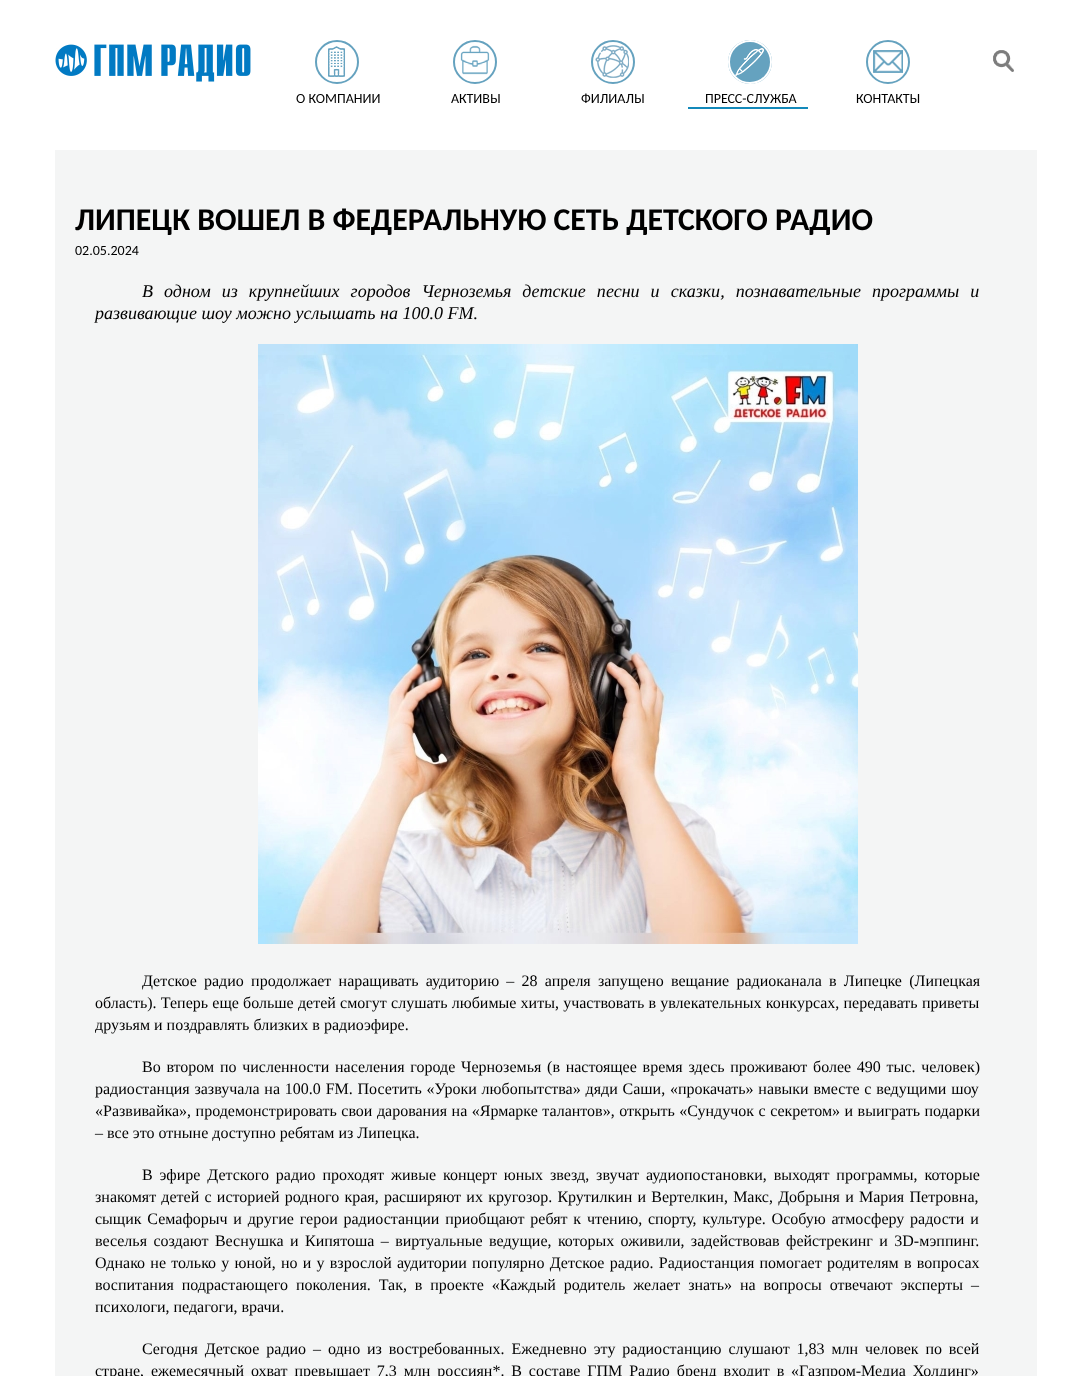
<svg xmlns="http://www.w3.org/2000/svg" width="1092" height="1376">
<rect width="100%" height="100%" fill="#fff"/>
<image x="55" y="44" width="196" height="38" href="media/1.png"/>
<image x="993" y="50" width="21" height="22" href="media/2.png"/>
<image x="328" y="46" width="18" height="31" href="media/3.png"/>
<circle cx="337" cy="62" r="21" fill="none" stroke="#65a2bf" stroke-width="2"/>
<text x="296" y="103" style="font-family:Carlito;font-size:14px;fill:#000">О КОМПАНИИ</text>
<image x="460" y="45" width="30" height="30" href="media/4.png"/>
<circle cx="475" cy="62" r="21" fill="none" stroke="#65a2bf" stroke-width="2"/>
<text x="451" y="103" style="font-family:Carlito;font-size:14px;fill:#000">АКТИВЫ</text>
<image x="595" y="45" width="34" height="33" href="media/5.png"/>
<circle cx="613" cy="62" r="21" fill="none" stroke="#65a2bf" stroke-width="2"/>
<text x="581" y="103" style="font-family:Carlito;font-size:14px;fill:#000">ФИЛИАЛЫ</text>
<circle cx="750" cy="62" r="22" fill="#65a2bf"/>
<image x="735" y="48" width="29" height="28" href="media/6.png"/>
<circle cx="750" cy="62" r="21" fill="none" stroke="#fff" stroke-width="2"/>
<rect x="688" y="107" width="120" height="2" fill="#1389ba"/>
<text x="705" y="103" style="font-family:Carlito;font-size:14px;fill:#000">ПРЕСС-СЛУЖБА</text>
<image x="873" y="50" width="30" height="23" href="media/7.png"/>
<circle cx="888" cy="62" r="21" fill="none" stroke="#65a2bf" stroke-width="2"/>
<text x="856" y="103" style="font-family:Carlito;font-size:14px;fill:#000">КОНТАКТЫ</text>
<rect x="55" y="150" width="982" height="1226" fill="#f4f5f5"/>
<text x="75" y="230" style="font-family:Carlito;font-size:31.8px;font-weight:bold;fill:#000">ЛИПЕЦК ВОШЕЛ В ФЕДЕРАЛЬНУЮ СЕТЬ ДЕТСКОГО РАДИО</text>
<text x="75" y="255" style="font-family:Carlito;font-size:14px;fill:#000">02.05.2024</text>
<text x="142" y="297" word-spacing="6.5" style="font-family:Liberation Serif;font-size:18.05px;font-style:italic;fill:#000">В одном из крупнейших городов Черноземья детские песни и сказки, познавательные программы и</text>
<text x="95" y="319" style="font-family:Liberation Serif;font-size:18.05px;font-style:italic;fill:#000">развивающие шоу можно услышать на 100.0 FM.</text>
<image x="258" y="344" width="600" height="600" href="media/8.png"/>
<text x="142" y="986" word-spacing="3.25" style="font-family:Liberation Serif;font-size:16px;fill:#000">Детское радио продолжает наращивать аудиторию – 28 апреля запущено вещание радиоканала в Липецке (Липецкая</text>
<text x="95" y="1008" word-spacing="0.25" style="font-family:Liberation Serif;font-size:16px;fill:#000">область). Теперь еще больше детей смогут слушать любимые хиты, участвовать в увлекательных конкурсах, передавать приветы</text>
<text x="95" y="1030" style="font-family:Liberation Serif;font-size:16px;fill:#000">друзьям и поздравлять близких в радиоэфире.</text>
<text x="142" y="1072" word-spacing="1.75" style="font-family:Liberation Serif;font-size:16px;fill:#000">Во втором по численности населения городе Черноземья (в настоящее время здесь проживают более 490 тыс. человек)</text>
<text x="95" y="1094" word-spacing="0.8" style="font-family:Liberation Serif;font-size:16px;fill:#000">радиостанция зазвучала на 100.0 FM. Посетить «Уроки любопытства» дяди Саши, «прокачать» навыки вместе с ведущими шоу</text>
<text x="95" y="1116" word-spacing="0.5" style="font-family:Liberation Serif;font-size:16px;fill:#000">«Развивайка», продемонстрировать свои дарования на «Ярмарке талантов», открыть «Сундучок с секретом» и выиграть подарки</text>
<text x="95" y="1138" style="font-family:Liberation Serif;font-size:16px;fill:#000">– все это отныне доступно ребятам из Липецка.</text>
<text x="142" y="1180" word-spacing="2.9" style="font-family:Liberation Serif;font-size:16px;fill:#000">В эфире Детского радио проходят живые концерт юных звезд, звучат аудиопостановки, выходят программы, которые</text>
<text x="95" y="1202" word-spacing="1.25" style="font-family:Liberation Serif;font-size:16px;fill:#000">знакомят детей с историей родного края, расширяют их кругозор. Крутилкин и Вертелкин, Макс, Добрыня и Мария Петровна,</text>
<text x="95" y="1224" word-spacing="1.8" style="font-family:Liberation Serif;font-size:16px;fill:#000">сыщик Семафорыч и другие герои радиостанции приобщают ребят к чтению, спорту, культуре. Особую атмосферу радости и</text>
<text x="95" y="1246" word-spacing="2.4" style="font-family:Liberation Serif;font-size:16px;fill:#000">веселья создают Веснушка и Кипятоша – виртуальные ведущие, которых оживили, задействовав фейстрекинг и 3D-мэппинг.</text>
<text x="95" y="1268" word-spacing="1.25" style="font-family:Liberation Serif;font-size:16px;fill:#000">Однако не только у юной, но и у взрослой аудитории популярно Детское радио. Радиостанция помогает родителям в вопросах</text>
<text x="95" y="1290" word-spacing="3.9" style="font-family:Liberation Serif;font-size:16px;fill:#000">воспитания подрастающего поколения. Так, в проекте «Каждый родитель желает знать» на вопросы отвечают эксперты –</text>
<text x="95" y="1312" style="font-family:Liberation Serif;font-size:16px;fill:#000">психологи, педагоги, врачи.</text>
<text x="142" y="1354" word-spacing="2.9" style="font-family:Liberation Serif;font-size:16px;fill:#000">Сегодня Детское радио – одно из востребованных. Ежедневно эту радиостанцию слушают 1,83 млн человек по всей</text>
<text x="95" y="1376" word-spacing="2.9" style="font-family:Liberation Serif;font-size:16px;fill:#000">стране, ежемесячный охват превышает 7,3 млн россиян*. В составе ГПМ Радио бренд входит в «Газпром-Медиа Холдинг»</text>
</svg>
